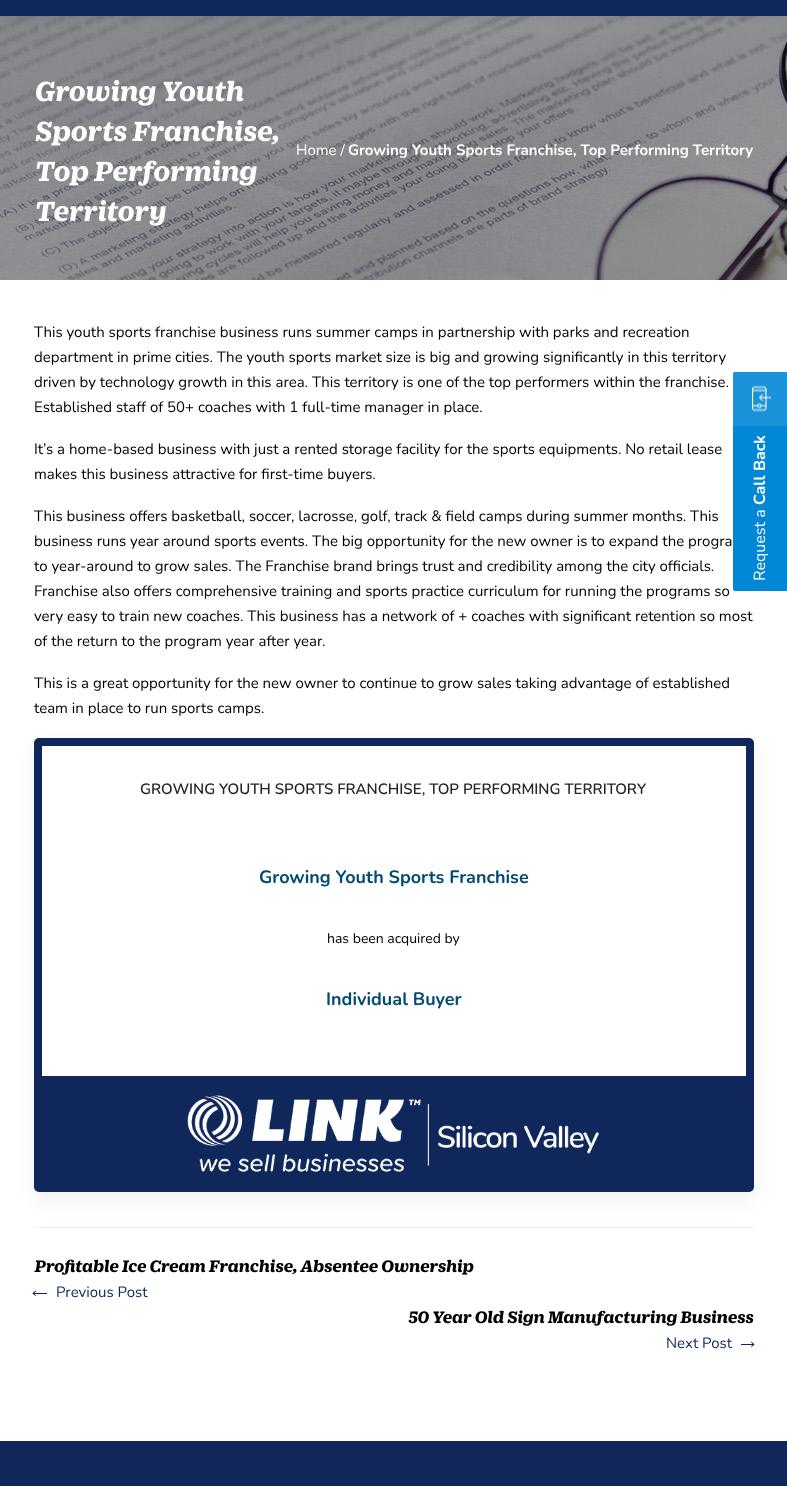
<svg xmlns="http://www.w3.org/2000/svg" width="787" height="1486">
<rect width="100%" height="100%" fill="#fff"/>
<image x="0" y="16" width="787" height="264" href="media/1.png"/>
<rect x="1" y="-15" width="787" height="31" fill="#0000001a" filter="blur(5px)"/>
<rect width="787" height="16" fill="#0f275a"/>
<image x="36" y="80" width="208" height="26" href="media/2.png"/>
<image x="35" y="120" width="244" height="26" href="media/3.png"/>
<image x="36" y="160" width="221" height="26" href="media/4.png"/>
<image x="36" y="200" width="130" height="26" href="media/5.png"/>
<text x="296" y="155" style="font-family:Nunito;font-size:15px;fill:#fff">Home /</text>
<text x="348" y="155" style="font-family:Nunito;font-size:15px;font-weight:bold;fill:#fff">Growing Youth Sports Franchise, Top Performing Territory</text>
<text x="34" y="337" style="font-family:Nunito;font-size:15px;fill:#000">This youth sports franchise business runs summer camps in partnership with parks and recreation</text>
<text x="34" y="362" style="font-family:Nunito;font-size:15px;fill:#000">department in prime cities. The youth sports market size is big and growing significantly in this territory</text>
<text x="34" y="387" style="font-family:Nunito;font-size:15px;fill:#000">driven by technology growth in this area. This territory is one of the top performers within the franchise.</text>
<text x="34" y="412" style="font-family:Nunito;font-size:15px;fill:#000">Established staff of 50+ coaches with 1 full-time manager in place.</text>
<text x="34" y="454" style="font-family:Nunito;font-size:15px;fill:#000">It’s a home-based business with just a rented storage facility for the sports equipments. No retail lease</text>
<text x="34" y="479" style="font-family:Nunito;font-size:15px;fill:#000">makes this business attractive for first-time buyers.</text>
<text x="34" y="521" style="font-family:Nunito;font-size:15px;fill:#000">This business offers basketball, soccer, lacrosse, golf, track &amp; field camps during summer months. This</text>
<text x="34" y="546" style="font-family:Nunito;font-size:15px;fill:#000">business runs year around sports events. The big opportunity for the new owner is to expand the progra</text>
<text x="34" y="571" style="font-family:Nunito;font-size:15px;fill:#000">to year-around to grow sales. The Franchise brand brings trust and credibility among the city officials.</text>
<text x="34" y="596" style="font-family:Nunito;font-size:15px;fill:#000">Franchise also offers comprehensive training and sports practice curriculum for running the programs so</text>
<text x="34" y="621" style="font-family:Nunito;font-size:15px;fill:#000">very easy to train new coaches. This business has a network of + coaches with significant retention so most</text>
<text x="34" y="646" style="font-family:Nunito;font-size:15px;fill:#000">of the return to the program year after year.</text>
<text x="34" y="688" style="font-family:Nunito;font-size:15px;fill:#000">This is a great opportunity for the new owner to continue to grow sales taking advantage of established</text>
<text x="34" y="713" style="font-family:Nunito;font-size:15px;fill:#000">team in place to run sports camps.</text>
<rect x="34" y="1227" width="720" height="1" fill="#efefef"/>
<rect x="34" y="748" width="720" height="454" rx="5" fill="#0000000d" filter="blur(10px)"/>
<rect x="34" y="738" width="720" height="454" rx="5" fill="#0f275a"/>
<rect x="42" y="746" width="704" height="330" fill="#fff"/>
<text x="140" y="794" style="font-family:Nunito;font-size:15px;font-weight:600;fill:#282423">GROWING YOUTH SPORTS FRANCHISE, TOP PERFORMING TERRITORY</text>
<text x="259" y="883" style="font-family:Nunito;font-size:18px;font-weight:bold;fill:#004d71">Growing Youth Sports Franchise</text>
<text x="327" y="943" style="font-family:Nunito;font-size:14px;fill:#000">has been acquired by</text>
<text x="326" y="1005" style="font-family:Nunito;font-size:18px;font-weight:bold;fill:#004d71">Individual Buyer</text>
<image x="187" y="1095" width="412" height="77" href="media/6.png"/>
<image x="34" y="1259" width="440" height="16" href="media/7.png"/>
<rect x="34" y="1293" width="13" height="1" fill="#0f275a"/>
<path d="M36 1295.5l-.5 .5l-3-2.5l1-1z" fill="#0f275a"/>
<path d="M36 1291l-2.5 3l-1-.5l3-3z" fill="#0f275a"/>
<text x="56" y="1297" style="font-family:Nunito;font-size:15px;fill:#0f275a">Previous Post</text>
<image x="408" y="1310" width="346" height="16" href="media/8.png"/>
<text x="666" y="1348" style="font-family:Nunito;font-size:15px;fill:#0f275a">Next Post</text>
<rect x="741" y="1344" width="13" height="1" fill="#0f275a"/>
<path d="M751 1342l.5-.5l3 3l-1 .5z" fill="#0f275a"/>
<path d="M751 1346.5l2.5-3l1 1l-3 2.5z" fill="#0f275a"/>
<path d="M733 589v-215c0-2 1-2 2-2h52v219h-52c-1 0-2-1-2-2z" fill="#0087d6"/>
<rect x="733" y="372" width="54" height="54" fill="#ffffff1a"/>
<image x="752" y="385" width="19" height="27" href="media/9.png"/>
<text x="765" y="505" transform="rotate(-90 765 505)" style="font-family:Nunito;font-size:16px;font-weight:bold;fill:#fff">Call Back</text>
<text x="765" y="581" transform="rotate(-90 765 581)" style="font-family:Nunito;font-size:16px;fill:#fff">Request a</text>
<rect y="1441" width="787" height="45" fill="#0f275a"/>
</svg>
